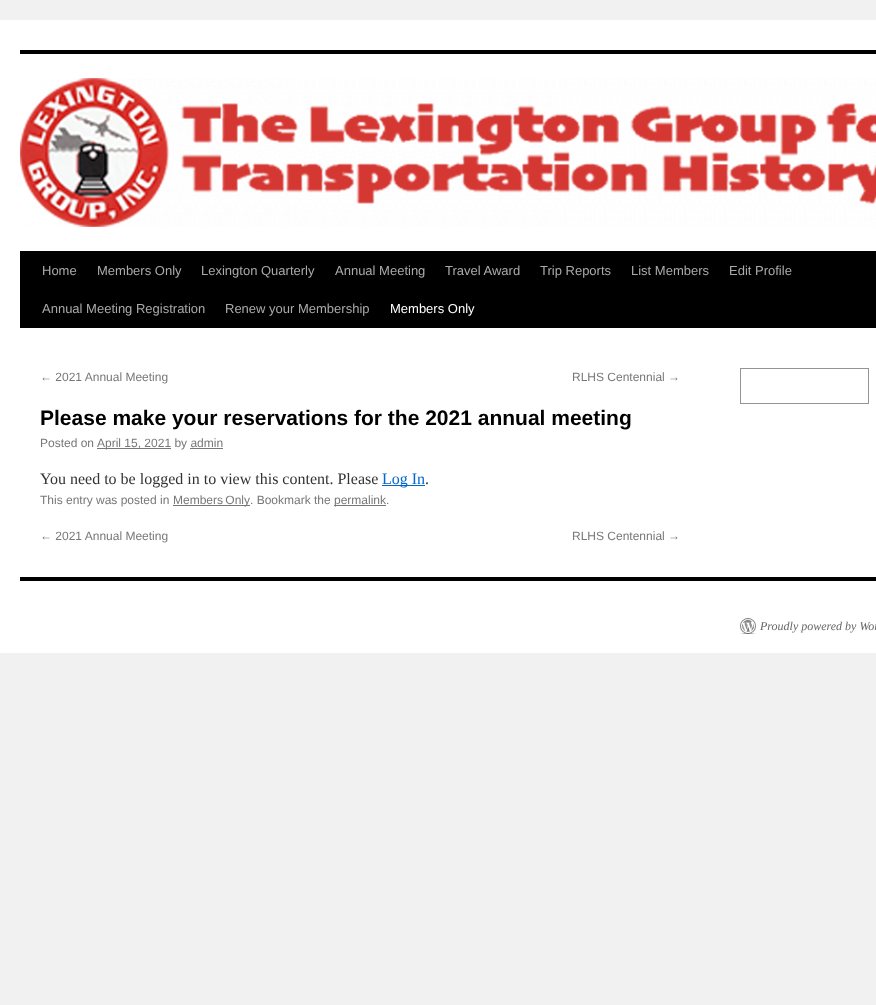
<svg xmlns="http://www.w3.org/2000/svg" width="876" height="1005">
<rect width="100%" height="100%" fill="#f1f1f1"/>
<rect y="20" width="876" height="633" fill="#fff"/>
<rect x="20" y="50" width="856" height="4" fill="#000"/>
<rect x="20" y="251" width="856" height="77" fill="#000"/>
<image x="20" y="78" width="856" height="149" href="media/1.png"/>
<text x="42" y="275" style="font-family:Liberation Sans;font-size:13px;fill:#aaa">Home</text>
<text x="97" y="275" style="font-family:Liberation Sans;font-size:13px;fill:#aaa">Members Only</text>
<text x="201" y="275" style="font-family:Liberation Sans;font-size:13px;fill:#aaa">Lexington Quarterly</text>
<text x="335" y="275" style="font-family:Liberation Sans;font-size:13px;fill:#aaa">Annual Meeting</text>
<text x="445" y="275" style="font-family:Liberation Sans;font-size:13px;fill:#aaa">Travel Award</text>
<text x="540" y="275" style="font-family:Liberation Sans;font-size:13px;fill:#aaa">Trip Reports</text>
<text x="631" y="275" style="font-family:Liberation Sans;font-size:13px;fill:#aaa">List Members</text>
<text x="729" y="275" style="font-family:Liberation Sans;font-size:13px;fill:#aaa">Edit Profile</text>
<text x="42" y="313" style="font-family:Liberation Sans;font-size:13px;fill:#aaa">Annual Meeting Registration</text>
<text x="225" y="313" style="font-family:Liberation Sans;font-size:13px;fill:#aaa">Renew your Membership</text>
<text x="390" y="313" style="font-family:Liberation Sans;font-size:13px;fill:#fff">Members Only</text>
<text x="40" y="381" style="font-family:Liberation Sans;font-size:12px;fill:#777">← 2021 Annual Meeting</text>
<text x="572" y="381" style="font-family:Liberation Sans;font-size:12px;fill:#777">RLHS Centennial →</text>
<text x="40" y="425" style="font-family:Liberation Sans;font-size:21px;font-weight:bold;fill:#000">Please make your reservations for the 2021 annual meeting</text>
<text x="40" y="447" style="font-family:Liberation Sans;font-size:12px;fill:#777">Posted on</text>
<rect x="97" y="448" width="74" height="1" fill="#777"/>
<text x="97" y="447" style="font-family:Liberation Sans;font-size:12px;fill:#777">April 15, 2021 by admin</text>
<rect x="190" y="448" width="33" height="1" fill="#777"/>
<text x="40" y="484" style="font-family:Liberation Serif;font-size:16px;fill:#333">You need to be logged in to view this content. Please</text>
<rect x="382" y="485" width="43" height="1" fill="#06c"/>
<text x="382" y="484" style="font-family:Liberation Serif;font-size:16px;fill:#06c">Log In</text>
<text x="425" y="484" style="font-family:Liberation Serif;font-size:16px;fill:#333">.</text>
<text x="40" y="504" style="font-family:Liberation Sans;font-size:12px;fill:#777">This entry was posted in</text>
<rect x="173" y="505" width="77" height="1" fill="#777"/>
<text x="173" y="504" word-spacing="-1" style="font-family:Liberation Sans;font-size:12px;fill:#777">Members Only</text>
<text x="250" y="504" style="font-family:Liberation Sans;font-size:12px;fill:#777">. Bookmark the</text>
<rect x="334" y="505" width="52" height="1" fill="#777"/>
<text x="334" y="504" style="font-family:Liberation Sans;font-size:12px;fill:#777">permalink.</text>
<text x="40" y="540" style="font-family:Liberation Sans;font-size:12px;fill:#777">← 2021 Annual Meeting</text>
<text x="572" y="540" style="font-family:Liberation Sans;font-size:12px;fill:#777">RLHS Centennial →</text>
<rect x="740.5" y="368.5" width="128" height="35" fill="none" stroke="#949494"/>
<rect x="20" y="577" width="856" height="4" fill="#000"/>
<image x="740" y="618" width="16" height="16" href="media/2.png"/>
<text x="760" y="630" style="font-family:Liberation Serif;font-size:12px;font-style:italic;fill:#666">Proudly powered by Wor</text>
</svg>
